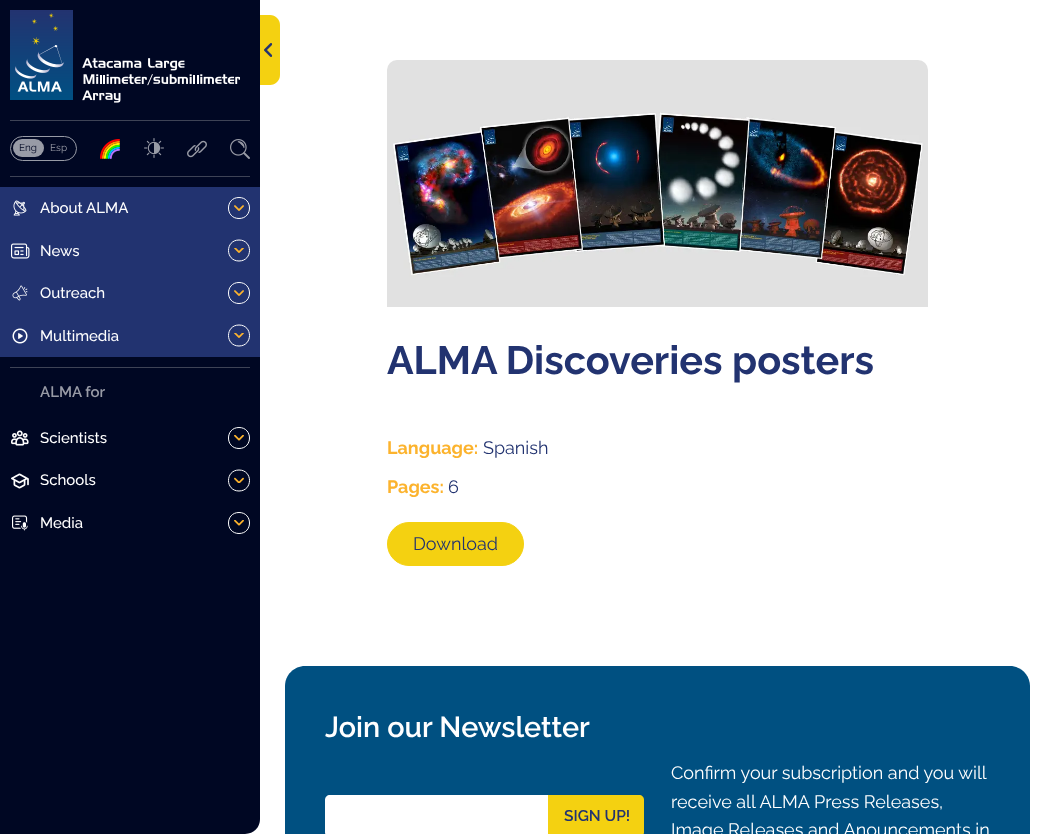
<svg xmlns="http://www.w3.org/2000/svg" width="1055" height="834">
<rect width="100%" height="100%" fill="#fff"/>
<path d="M260 15h10c5.5 0 10 4.5 10 10v50c0 5.5-4.5 10-10 10h-10z" fill="#f4d111"/>
<image x="264" y="43" width="9" height="14" href="media/1.png"/>
<path d="M0 0h260v819c0 8.5-6.5 15-15 15h-245z" fill="#000723"/>
<image x="10" y="10" width="230" height="93" href="media/2.png"/>
<rect x="10" y="120" width="240" height="1" fill="#3e4356"/>
<rect x="10" y="176" width="240" height="1" fill="#3e4356"/>
<rect x="10.5" y="136.5" width="66" height="24" rx="12" fill="none" stroke="#989ba6"/>
<rect x="13" y="139" width="31" height="18" rx="9" fill="#989ba6"/>
<text x="19" y="151" style="font-family:Raleway;font-size:10px;fill:#000723">Eng</text>
<text x="50" y="151" style="font-family:Raleway;font-size:10px;fill:#989ba6">Esp</text>
<image x="100" y="139" width="20" height="20" href="media/3.png"/>
<image x="144" y="138" width="20" height="20" href="media/4.png"/>
<image x="187" y="140" width="20" height="18" href="media/5.png"/>
<image x="230" y="139" width="20" height="20" href="media/6.png"/>
<rect y="187" width="260" height="170" fill="#223370"/>
<image x="13" y="200" width="14" height="16" href="media/7.png"/>
<text x="40" y="213" style="font-family:Raleway;font-size:15px;font-weight:500;fill:#fff">About ALMA</text>
<image x="234" y="205" width="10" height="6" href="media/8.png"/>
<path d="M239 218.5c-14 0-14-21 0-21c14 0 14 21 0 21z" fill="none" stroke="#fff"/>
<image x="11" y="243" width="19" height="16" href="media/9.png"/>
<text x="40" y="256" style="font-family:Raleway;font-size:15px;font-weight:500;fill:#fff">News</text>
<image x="234" y="248" width="10" height="5" href="media/10.png"/>
<path d="M239 261c-14 0-14-21 0-21c14 0 14 21 0 21z" fill="none" stroke="#fff"/>
<image x="12" y="285" width="16" height="16" href="media/11.png"/>
<text x="40" y="298" style="font-family:Raleway;font-size:15px;font-weight:500;fill:#fff">Outreach</text>
<image x="234" y="290" width="10" height="6" href="media/8.png"/>
<path d="M239 303.5c-14 0-14-21 0-21c14 0 14 21 0 21z" fill="none" stroke="#fff"/>
<image x="12" y="328" width="16" height="16" href="media/12.png"/>
<text x="40" y="341" style="font-family:Raleway;font-size:15px;font-weight:500;fill:#fff">Multimedia</text>
<image x="234" y="333" width="10" height="5" href="media/10.png"/>
<path d="M239 346c-14 0-14-21 0-21c14 0 14 21 0 21z" fill="none" stroke="#fff"/>
<rect x="10" y="367" width="240" height="1" fill="#3e4356"/>
<text x="40" y="397" style="font-family:Raleway;font-size:15px;font-weight:600;fill:#989ba6">ALMA for</text>
<image x="11" y="430" width="18" height="16" href="media/13.png"/>
<text x="40" y="443" style="font-family:Raleway;font-size:15px;font-weight:500;fill:#fff">Scientists</text>
<image x="234" y="435" width="10" height="6" href="media/14.png"/>
<path d="M239 448.5c-14 0-14-21 0-21c14 0 14 21 0 21z" fill="none" stroke="#fff"/>
<image x="11" y="473" width="18" height="16" href="media/15.png"/>
<text x="40" y="485" style="font-family:Raleway;font-size:15px;font-weight:500;fill:#fff">Schools</text>
<image x="234" y="477" width="10" height="6" href="media/16.png"/>
<path d="M239 491c-14 0-14-21 0-21c14 0 14 21 0 21z" fill="none" stroke="#fff"/>
<image x="12" y="515" width="16" height="16" href="media/17.png"/>
<text x="40" y="528" style="font-family:Raleway;font-size:15px;font-weight:500;fill:#fff">Media</text>
<image x="234" y="520" width="10" height="6" href="media/14.png"/>
<path d="M239 533.5c-14 0-14-21 0-21c14 0 14 21 0 21z" fill="none" stroke="#fff"/>
<image x="387" y="60" width="541" height="247" href="media/18.png"/>
<text x="387" y="374" style="font-family:Raleway;font-size:39.6px;font-weight:bold;fill:#223370">ALMA Discoveries posters</text>
<text x="387" y="454" style="font-family:Raleway;font-size:18px;font-weight:bold;fill:#fcb32d">Language:</text>
<text x="483" y="454" style="font-family:Raleway;font-size:18px;fill:#223370">Spanish</text>
<text x="387" y="493" style="font-family:Raleway;font-size:18px;font-weight:bold;fill:#fcb32d">Pages:</text>
<text x="448" y="493" style="font-family:Raleway;font-size:18px;fill:#223370">6</text>
<rect x="387.5" y="522.5" width="136" height="43" rx="21.5" fill="#f4d111" stroke="#f4d111"/>
<text x="413" y="550" style="font-family:Raleway;font-size:18px;fill:#223370">Download</text>
<path d="M305 666h705c11 0 20 9 20 20v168h-745v-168c0-11 9-20 20-20z" fill="#005081"/>
<text x="325" y="737" style="font-family:Raleway;font-size:28.75px;font-weight:600;fill:#fff">Join our Newsletter</text>
<path d="M330 795h218v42h-218c-3 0-5-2-5-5v-32c0-3 2-5 5-5z" fill="#fff"/>
<path d="M548 795h91c3 0 5 2 5 5v32c0 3-2 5-5 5h-91z" fill="#f4d111"/>
<text x="564" y="821" style="font-family:Raleway;font-size:15.5px;font-weight:600;fill:#223370">SIGN UP!</text>
<text x="671" y="779" style="font-family:Raleway;font-size:18px;fill:#fff">Confirm your subscription and you will</text>
<text x="671" y="808" style="font-family:Raleway;font-size:18px;fill:#fff">receive all ALMA Press Releases,</text>
<text x="671" y="836" style="font-family:Raleway;font-size:18px;fill:#fff">Image Releases and Anouncements in</text>
</svg>
